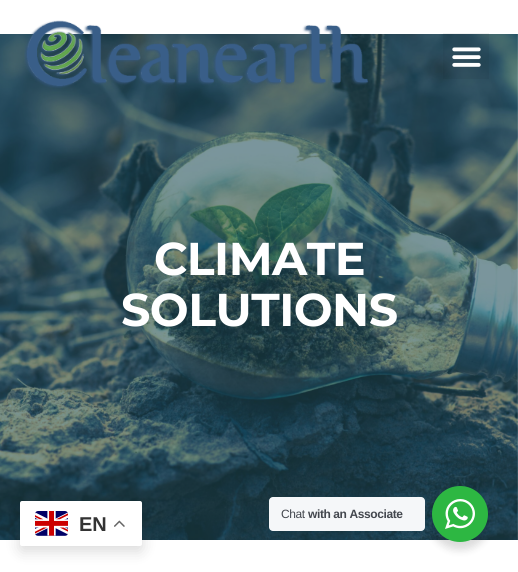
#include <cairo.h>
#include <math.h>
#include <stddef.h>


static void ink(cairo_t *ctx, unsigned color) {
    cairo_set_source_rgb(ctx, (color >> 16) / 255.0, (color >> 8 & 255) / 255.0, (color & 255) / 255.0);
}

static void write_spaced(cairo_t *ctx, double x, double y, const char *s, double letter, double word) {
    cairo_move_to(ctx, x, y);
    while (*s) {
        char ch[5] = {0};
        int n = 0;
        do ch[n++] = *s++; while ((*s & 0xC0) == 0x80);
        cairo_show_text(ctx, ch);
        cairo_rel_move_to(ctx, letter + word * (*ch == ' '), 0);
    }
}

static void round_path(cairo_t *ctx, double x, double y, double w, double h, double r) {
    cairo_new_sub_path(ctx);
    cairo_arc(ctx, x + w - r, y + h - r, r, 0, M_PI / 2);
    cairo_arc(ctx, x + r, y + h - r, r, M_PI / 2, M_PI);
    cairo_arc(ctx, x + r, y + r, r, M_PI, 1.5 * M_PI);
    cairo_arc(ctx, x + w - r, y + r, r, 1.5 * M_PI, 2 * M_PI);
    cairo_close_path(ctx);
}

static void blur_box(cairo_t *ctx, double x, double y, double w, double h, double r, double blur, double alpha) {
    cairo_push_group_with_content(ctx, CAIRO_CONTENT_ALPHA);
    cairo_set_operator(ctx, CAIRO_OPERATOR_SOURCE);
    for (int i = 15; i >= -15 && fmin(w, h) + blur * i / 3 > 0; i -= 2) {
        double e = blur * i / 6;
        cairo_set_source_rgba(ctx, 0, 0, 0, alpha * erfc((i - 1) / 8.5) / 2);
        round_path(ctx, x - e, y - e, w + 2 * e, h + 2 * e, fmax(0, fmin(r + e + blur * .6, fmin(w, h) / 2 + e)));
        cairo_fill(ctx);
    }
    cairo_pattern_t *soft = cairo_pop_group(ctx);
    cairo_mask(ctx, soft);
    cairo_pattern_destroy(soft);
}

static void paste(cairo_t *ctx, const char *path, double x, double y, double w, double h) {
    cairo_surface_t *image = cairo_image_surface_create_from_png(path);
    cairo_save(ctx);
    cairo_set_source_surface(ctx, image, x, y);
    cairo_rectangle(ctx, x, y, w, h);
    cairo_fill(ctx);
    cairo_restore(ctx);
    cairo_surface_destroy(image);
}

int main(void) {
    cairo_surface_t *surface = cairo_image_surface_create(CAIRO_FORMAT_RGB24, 518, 572);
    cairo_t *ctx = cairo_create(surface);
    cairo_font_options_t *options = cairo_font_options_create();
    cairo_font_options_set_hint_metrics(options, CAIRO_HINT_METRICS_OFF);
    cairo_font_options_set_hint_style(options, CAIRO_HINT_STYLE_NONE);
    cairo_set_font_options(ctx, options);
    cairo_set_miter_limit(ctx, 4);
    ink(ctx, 0xFFFFFF);
    cairo_paint(ctx);
    paste(ctx, "media/3.png", 0, 34, 518, 506);
    paste(ctx, "media/1.png", 24, 20, 345, 68);
    cairo_set_source_rgba(ctx, 0, 0, 0, 0.05);
    cairo_rectangle(ctx, 443, 33, 46, 46);
    cairo_fill(ctx);
    paste(ctx, "media/2.png", 452, 47, 29, 20);
    cairo_select_font_face(ctx, "Montserrat", CAIRO_FONT_SLANT_NORMAL, CAIRO_FONT_WEIGHT_BOLD);
    cairo_set_font_size(ctx, 46);
    ink(ctx, 0xFFFFFF);
    write_spaced(ctx, 154, 275, "CLIMATE", -0.5, 0);
    write_spaced(ctx, 121, 326, "SOLUTIONS", -0.5, 0);
    ink(ctx, 0x000000);
    blur_box(ctx, 430, 490, 60, 60, 30, 4, 0.14);
    ink(ctx, 0xF5F7F9);
    round_path(ctx, 269, 497, 156, 34, 4);
    cairo_fill(ctx);
    cairo_select_font_face(ctx, "Liberation Sans", CAIRO_FONT_SLANT_NORMAL, CAIRO_FONT_WEIGHT_NORMAL);
    cairo_set_font_size(ctx, 12);
    ink(ctx, 0x43474E);
    write_spaced(ctx, 281, 518, "Chat", -0.4, 0);
    cairo_select_font_face(ctx, "Liberation Sans", CAIRO_FONT_SLANT_NORMAL, CAIRO_FONT_WEIGHT_BOLD);
    write_spaced(ctx, 308, 518, "with an Associate", -0.4, 0);
    ink(ctx, 0x2DB742);
    cairo_new_path(ctx);
    cairo_arc(ctx, 460, 514, 28, 0, 2 * M_PI);
    cairo_fill(ctx);
    paste(ctx, "media/4.png", 445, 499, 30, 30);
    ink(ctx, 0x000000);
    blur_box(ctx, 20, 506, 122, 45, 2, 7.5, 0.15);
    ink(ctx, 0xFFFFFF);
    round_path(ctx, 20, 501, 122, 45, 2);
    cairo_fill(ctx);
    paste(ctx, "media/5.png", 35, 511, 33, 25);
    cairo_set_font_size(ctx, 20);
    ink(ctx, 0x333333);
    cairo_move_to(ctx, 79, 531);
    cairo_show_text(ctx, "EN");
    paste(ctx, "media/6.png", 114, 520, 11, 7);
    cairo_surface_write_to_png(surface, "image.png");
    cairo_font_options_destroy(options);
    cairo_destroy(ctx);
    cairo_surface_destroy(surface);
    return 0;
}
